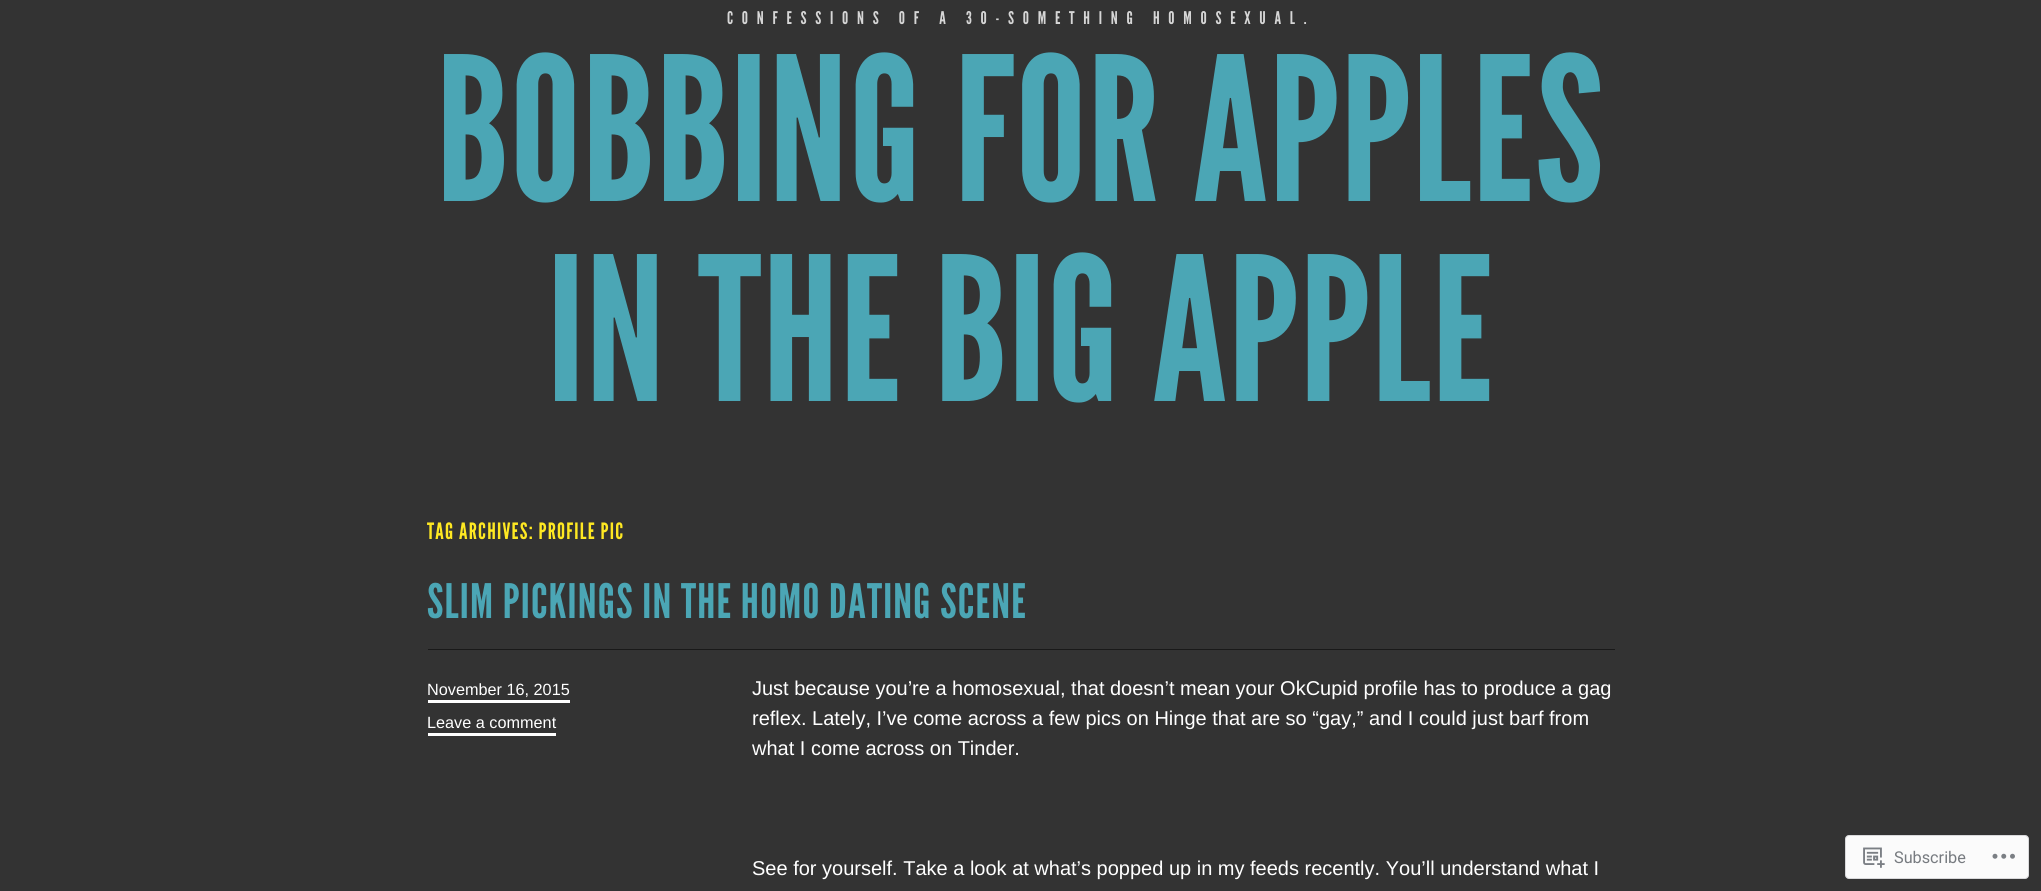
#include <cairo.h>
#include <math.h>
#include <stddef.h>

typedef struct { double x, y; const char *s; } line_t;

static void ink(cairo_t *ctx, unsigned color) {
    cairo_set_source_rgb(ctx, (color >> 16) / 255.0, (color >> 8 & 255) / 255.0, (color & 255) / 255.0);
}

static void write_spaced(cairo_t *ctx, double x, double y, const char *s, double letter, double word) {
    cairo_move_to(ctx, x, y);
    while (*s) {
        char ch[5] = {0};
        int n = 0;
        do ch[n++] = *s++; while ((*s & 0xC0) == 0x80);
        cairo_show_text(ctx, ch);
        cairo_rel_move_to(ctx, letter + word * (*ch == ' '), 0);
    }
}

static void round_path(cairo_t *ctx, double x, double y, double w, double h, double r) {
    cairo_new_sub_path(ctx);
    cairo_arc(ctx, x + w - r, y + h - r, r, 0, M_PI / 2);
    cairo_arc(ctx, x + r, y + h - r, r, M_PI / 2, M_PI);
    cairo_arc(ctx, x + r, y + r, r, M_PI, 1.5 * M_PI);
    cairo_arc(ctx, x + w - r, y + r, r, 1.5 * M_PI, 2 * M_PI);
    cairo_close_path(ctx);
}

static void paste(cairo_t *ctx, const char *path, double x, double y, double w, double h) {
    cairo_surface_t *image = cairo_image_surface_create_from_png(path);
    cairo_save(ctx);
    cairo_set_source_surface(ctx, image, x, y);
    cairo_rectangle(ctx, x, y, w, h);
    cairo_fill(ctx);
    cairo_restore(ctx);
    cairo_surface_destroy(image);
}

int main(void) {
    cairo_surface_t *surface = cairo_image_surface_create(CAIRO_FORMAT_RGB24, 2041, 891);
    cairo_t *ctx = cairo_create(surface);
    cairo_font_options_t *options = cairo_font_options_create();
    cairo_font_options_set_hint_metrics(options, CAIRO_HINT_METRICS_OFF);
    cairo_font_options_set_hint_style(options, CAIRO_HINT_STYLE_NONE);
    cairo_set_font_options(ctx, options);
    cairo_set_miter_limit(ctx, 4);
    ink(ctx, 0x333333);
    cairo_paint(ctx);
    cairo_select_font_face(ctx, "League Gothic", CAIRO_FONT_SLANT_NORMAL, CAIRO_FONT_WEIGHT_NORMAL);
    cairo_set_font_size(ctx, 17.5);
    ink(ctx, 0xD6D6D6);
    write_spaced(ctx, 727, 24, "CONFESSIONS OF A 30-SOMETHING HOMOSEXUAL.", 8.75, 0);
    cairo_set_font_size(ctx, 200);
    ink(ctx, 0x4BA6B5);
    write_spaced(ctx, 436, 201, "BOBBING FOR APPLES", 1.25, 0);
    write_spaced(ctx, 547, 401, "IN THE BIG APPLE", 1.25, 0);
    cairo_set_font_size(ctx, 22.5);
    ink(ctx, 0xFEE822);
    write_spaced(ctx, 427, 539, "TAG ARCHIVES: PROFILE PIC", 1.25, 0);
    ink(ctx, 0x191919);
    cairo_rectangle(ctx, 428, 649, 1187, 1);
    cairo_fill(ctx);
    cairo_set_font_size(ctx, 47.5);
    ink(ctx, 0x4BA6B5);
    write_spaced(ctx, 427, 618, "SLIM PICKINGS IN THE HOMO DATING SCENE", 1.25, 0);
    cairo_select_font_face(ctx, "Liberation Sans", CAIRO_FONT_SLANT_NORMAL, CAIRO_FONT_WEIGHT_NORMAL);
    cairo_set_font_size(ctx, 16.25);
    ink(ctx, 0xFFFFFF);
    cairo_move_to(ctx, 427, 695);
    cairo_show_text(ctx, "November 16, 2015");
    cairo_rectangle(ctx, 428, 700, 142, 3);
    cairo_fill(ctx);
    cairo_move_to(ctx, 427, 728);
    cairo_show_text(ctx, "Leave a comment");
    cairo_rectangle(ctx, 428, 733, 128, 3);
    cairo_fill(ctx);
    cairo_set_font_size(ctx, 20);
    {
        static const line_t items[] = {
            {752, 695, "Just because you’re a homosexual, that doesn’t mean your OkCupid profile has to produce a gag"},
            {752, 725, "reflex. Lately, I’ve come across a few pics on Hinge that are so “gay,” and I could just barf from"},
            {752, 755, "what I come across on Tinder."},
            {752, 875, "See for yourself. Take a look at what’s popped up in my feeds recently. You’ll understand what I"},
        };
        for (size_t i = 0; i < sizeof items / sizeof *items; i++) {
            cairo_move_to(ctx, items[i].x, items[i].y);
            cairo_show_text(ctx, items[i].s);
        }
    }
    ink(ctx, 0xFBFBFB);
    round_path(ctx, 1845.5, 835.5, 183, 43, 3.5);
    cairo_fill_preserve(ctx);
    ink(ctx, 0xD9D9DB);
    cairo_set_line_width(ctx, 1);
    cairo_stroke(ctx);
    paste(ctx, "media/1.png", 1863, 847, 22, 21);
    cairo_select_font_face(ctx, "Roboto", CAIRO_FONT_SLANT_NORMAL, CAIRO_FONT_WEIGHT_NORMAL);
    cairo_set_font_size(ctx, 16.25);
    ink(ctx, 0x777B80);
    cairo_move_to(ctx, 1894, 863);
    cairo_show_text(ctx, "Subscribe");
    paste(ctx, "media/2.png", 1992, 853, 23, 6);
    cairo_surface_write_to_png(surface, "image.png");
    cairo_font_options_destroy(options);
    cairo_destroy(ctx);
    cairo_surface_destroy(surface);
    return 0;
}
